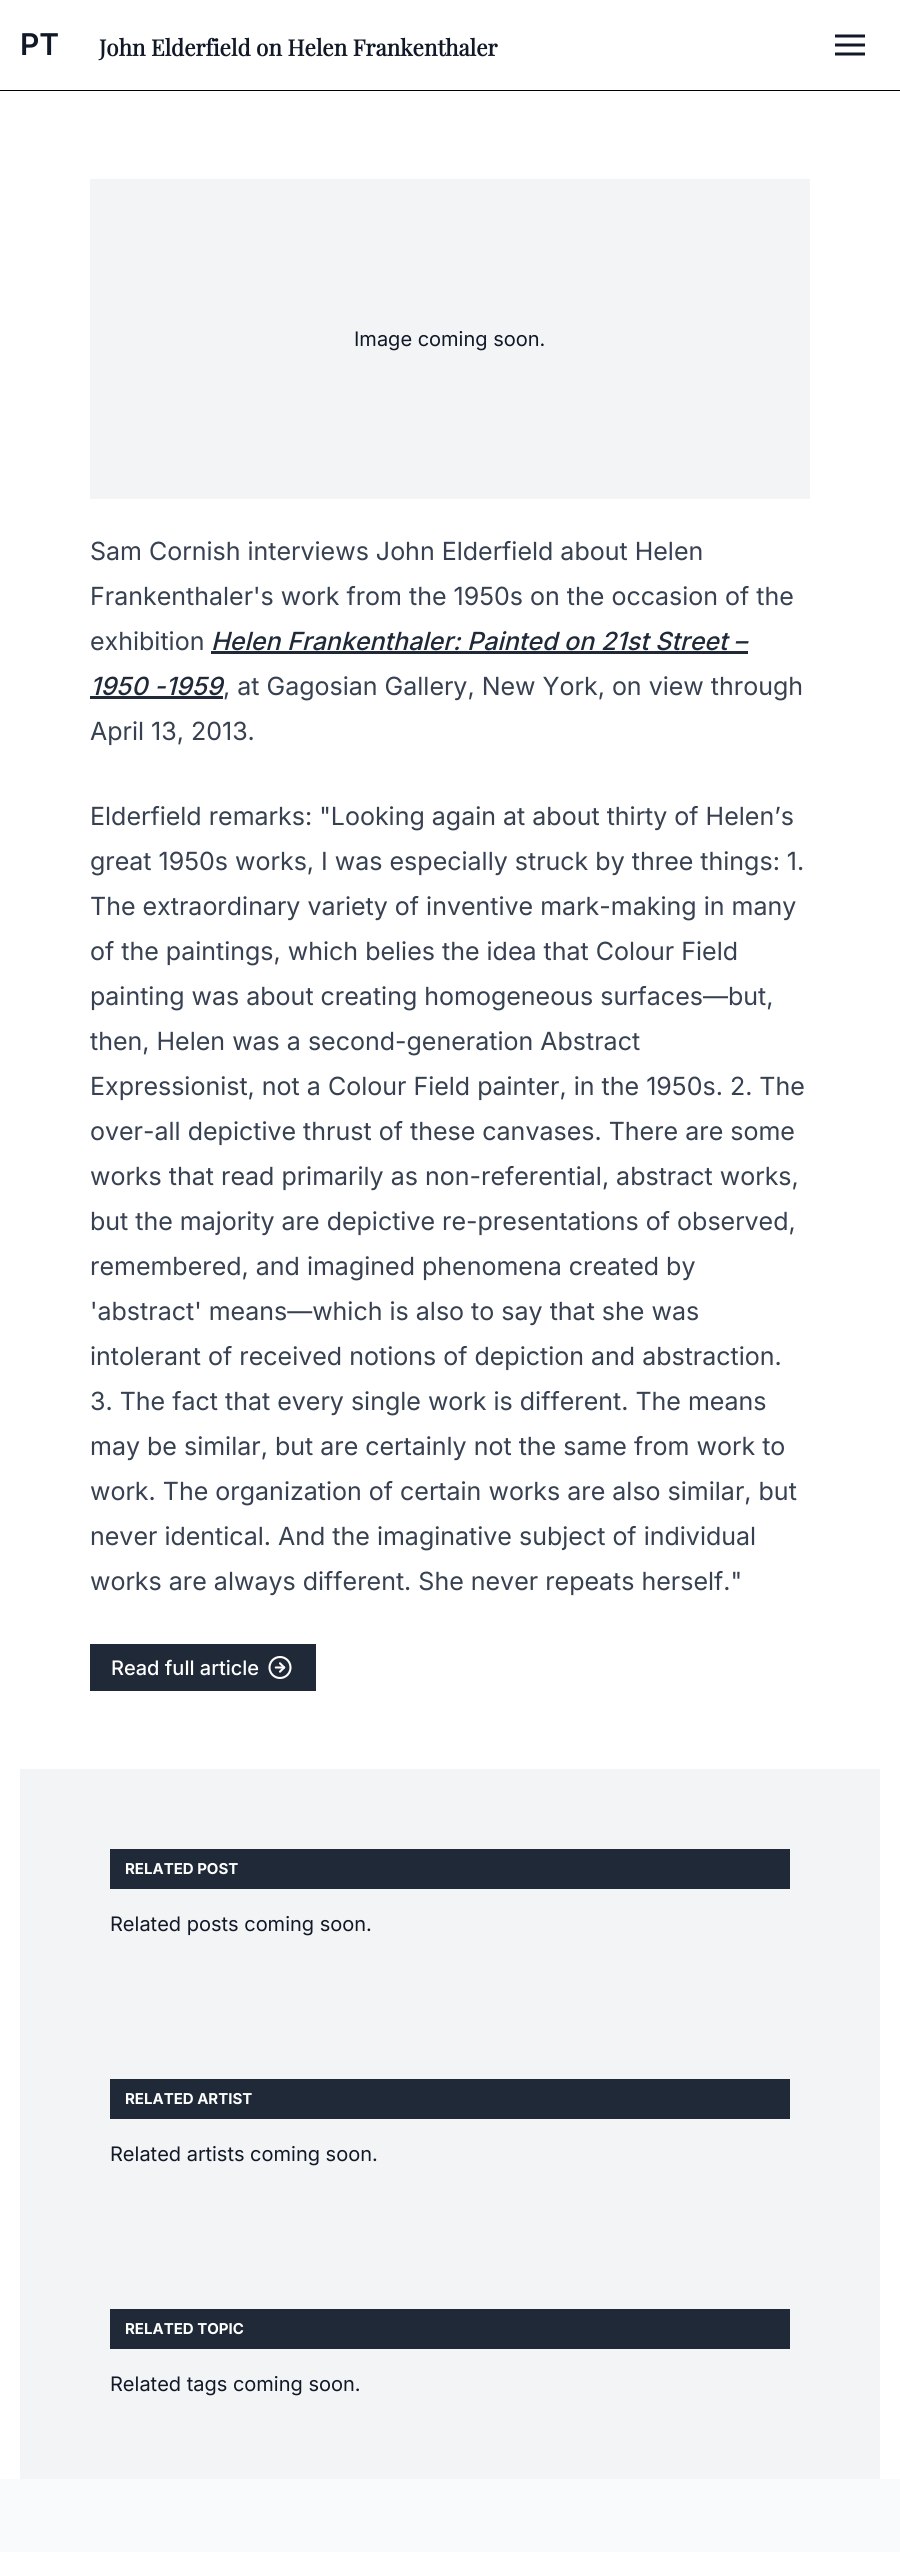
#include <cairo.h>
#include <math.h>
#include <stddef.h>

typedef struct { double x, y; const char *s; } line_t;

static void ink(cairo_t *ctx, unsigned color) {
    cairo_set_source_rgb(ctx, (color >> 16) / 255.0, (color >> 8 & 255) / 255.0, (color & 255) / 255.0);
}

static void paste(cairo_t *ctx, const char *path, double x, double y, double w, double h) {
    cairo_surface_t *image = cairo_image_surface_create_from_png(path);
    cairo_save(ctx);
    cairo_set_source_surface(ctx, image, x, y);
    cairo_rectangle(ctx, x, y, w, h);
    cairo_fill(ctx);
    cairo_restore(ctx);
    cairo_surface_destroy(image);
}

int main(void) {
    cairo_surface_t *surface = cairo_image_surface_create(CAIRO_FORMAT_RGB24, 900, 2552);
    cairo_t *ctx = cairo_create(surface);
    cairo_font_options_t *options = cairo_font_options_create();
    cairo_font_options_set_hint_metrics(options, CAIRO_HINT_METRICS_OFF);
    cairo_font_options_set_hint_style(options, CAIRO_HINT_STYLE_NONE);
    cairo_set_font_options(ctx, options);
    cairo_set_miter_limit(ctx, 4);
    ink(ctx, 0xFFFFFF);
    cairo_paint(ctx);
    ink(ctx, 0x000000);
    cairo_rectangle(ctx, 0, 90, 900, 1);
    cairo_fill(ctx);
    cairo_select_font_face(ctx, "Inter SemiBold", CAIRO_FONT_SLANT_NORMAL, CAIRO_FONT_WEIGHT_NORMAL);
    cairo_set_font_size(ctx, 30);
    ink(ctx, 0x111827);
    cairo_move_to(ctx, 20, 55);
    cairo_show_text(ctx, "PT");
    cairo_select_font_face(ctx, "Playfair Display", CAIRO_FONT_SLANT_NORMAL, CAIRO_FONT_WEIGHT_BOLD);
    cairo_set_font_size(ctx, 22.5);
    cairo_move_to(ctx, 99, 56);
    cairo_show_text(ctx, "John Elderfield on Helen Frankenthaler");
    paste(ctx, "media/1.png", 835, 34, 30, 22);
    ink(ctx, 0xF3F4F6);
    cairo_rectangle(ctx, 90, 179, 720, 320);
    cairo_fill(ctx);
    cairo_select_font_face(ctx, "Inter", CAIRO_FONT_SLANT_NORMAL, CAIRO_FONT_WEIGHT_NORMAL);
    cairo_set_font_size(ctx, 20);
    ink(ctx, 0x111827);
    cairo_move_to(ctx, 354, 346);
    cairo_show_text(ctx, "Image coming soon.");
    cairo_set_font_size(ctx, 25);
    ink(ctx, 0x374151);
    {
        static const line_t items[] = {
            {90, 560, "Sam Cornish interviews John Elderfield about Helen"},
            {90, 605, "Frankenthaler's work from the 1950s on the occasion of the"},
            {90, 650, "exhibition"},
        };
        for (size_t i = 0; i < sizeof items / sizeof *items; i++) {
            cairo_move_to(ctx, items[i].x, items[i].y);
            cairo_show_text(ctx, items[i].s);
        }
    }
    cairo_select_font_face(ctx, "Inter Medium", CAIRO_FONT_SLANT_ITALIC, CAIRO_FONT_WEIGHT_NORMAL);
    ink(ctx, 0x1F2937);
    cairo_move_to(ctx, 211, 650);
    cairo_show_text(ctx, "Helen Frankenthaler: Painted on 21st Street –");
    cairo_rectangle(ctx, 211, 651, 537, 3);
    cairo_fill(ctx);
    cairo_move_to(ctx, 90, 695);
    cairo_show_text(ctx, "1950 -1959");
    cairo_rectangle(ctx, 90, 696, 133, 3);
    cairo_fill(ctx);
    cairo_select_font_face(ctx, "Inter", CAIRO_FONT_SLANT_NORMAL, CAIRO_FONT_WEIGHT_NORMAL);
    ink(ctx, 0x374151);
    {
        static const line_t items[] = {
            {223, 695, ", at Gagosian Gallery, New York, on view through"},
            {90, 740, "April 13, 2013."},
            {90, 825, "Elderfield remarks: \"Looking again at about thirty of Helen’s"},
            {90, 870, "great 1950s works, I was especially struck by three things: 1."},
            {90, 915, "The extraordinary variety of inventive mark-making in many"},
            {90, 960, "of the paintings, which belies the idea that Colour Field"},
            {90, 1005, "painting was about creating homogeneous surfaces—but,"},
            {90, 1050, "then, Helen was a second-generation Abstract"},
            {90, 1095, "Expressionist, not a Colour Field painter, in the 1950s. 2. The"},
            {90, 1140, "over-all depictive thrust of these canvases. There are some"},
            {90, 1185, "works that read primarily as non-referential, abstract works,"},
            {90, 1230, "but the majority are depictive re-presentations of observed,"},
            {90, 1275, "remembered, and imagined phenomena created by"},
            {90, 1320, "'abstract' means—which is also to say that she was"},
            {90, 1365, "intolerant of received notions of depiction and abstraction."},
            {90, 1410, "3. The fact that every single work is different. The means"},
            {90, 1455, "may be similar, but are certainly not the same from work to"},
            {90, 1500, "work. The organization of certain works are also similar, but"},
            {90, 1545, "never identical. And the imaginative subject of individual"},
            {90, 1590, "works are always different. She never repeats herself.\""},
        };
        for (size_t i = 0; i < sizeof items / sizeof *items; i++) {
            cairo_move_to(ctx, items[i].x, items[i].y);
            cairo_show_text(ctx, items[i].s);
        }
    }
    ink(ctx, 0x1F2937);
    cairo_rectangle(ctx, 90, 1644, 226, 47);
    cairo_fill(ctx);
    cairo_select_font_face(ctx, "Inter Medium", CAIRO_FONT_SLANT_NORMAL, CAIRO_FONT_WEIGHT_NORMAL);
    cairo_set_font_size(ctx, 20);
    ink(ctx, 0xFFFFFF);
    cairo_move_to(ctx, 111, 1675);
    cairo_show_text(ctx, "Read full article");
    paste(ctx, "media/2.png", 268, 1656, 24, 23);
    ink(ctx, 0xF3F4F6);
    cairo_rectangle(ctx, 20, 1769, 860, 710);
    cairo_fill(ctx);
    ink(ctx, 0x1F2937);
    cairo_rectangle(ctx, 110, 1849, 680, 40);
    cairo_fill(ctx);
    cairo_select_font_face(ctx, "Inter", CAIRO_FONT_SLANT_NORMAL, CAIRO_FONT_WEIGHT_BOLD);
    cairo_set_font_size(ctx, 15);
    ink(ctx, 0xFFFFFF);
    cairo_move_to(ctx, 125, 1874);
    cairo_show_text(ctx, "RELATED POST");
    cairo_select_font_face(ctx, "Inter", CAIRO_FONT_SLANT_NORMAL, CAIRO_FONT_WEIGHT_NORMAL);
    cairo_set_font_size(ctx, 20);
    ink(ctx, 0x111827);
    cairo_move_to(ctx, 110, 1931);
    cairo_show_text(ctx, "Related posts coming soon.");
    ink(ctx, 0x1F2937);
    cairo_rectangle(ctx, 110, 2079, 680, 40);
    cairo_fill(ctx);
    cairo_select_font_face(ctx, "Inter", CAIRO_FONT_SLANT_NORMAL, CAIRO_FONT_WEIGHT_BOLD);
    cairo_set_font_size(ctx, 15);
    ink(ctx, 0xFFFFFF);
    cairo_move_to(ctx, 125, 2104);
    cairo_show_text(ctx, "RELATED ARTIST");
    cairo_select_font_face(ctx, "Inter", CAIRO_FONT_SLANT_NORMAL, CAIRO_FONT_WEIGHT_NORMAL);
    cairo_set_font_size(ctx, 20);
    ink(ctx, 0x111827);
    cairo_move_to(ctx, 110, 2161);
    cairo_show_text(ctx, "Related artists coming soon.");
    ink(ctx, 0x1F2937);
    cairo_rectangle(ctx, 110, 2309, 680, 40);
    cairo_fill(ctx);
    cairo_select_font_face(ctx, "Inter", CAIRO_FONT_SLANT_NORMAL, CAIRO_FONT_WEIGHT_BOLD);
    cairo_set_font_size(ctx, 15);
    ink(ctx, 0xFFFFFF);
    cairo_move_to(ctx, 125, 2334);
    cairo_show_text(ctx, "RELATED TOPIC");
    cairo_select_font_face(ctx, "Inter", CAIRO_FONT_SLANT_NORMAL, CAIRO_FONT_WEIGHT_NORMAL);
    cairo_set_font_size(ctx, 20);
    ink(ctx, 0x111827);
    cairo_move_to(ctx, 110, 2391);
    cairo_show_text(ctx, "Related tags coming soon.");
    ink(ctx, 0xF9FAFB);
    cairo_rectangle(ctx, 0, 2479, 900, 73);
    cairo_fill(ctx);
    cairo_surface_write_to_png(surface, "image.png");
    cairo_font_options_destroy(options);
    cairo_destroy(ctx);
    cairo_surface_destroy(surface);
    return 0;
}
